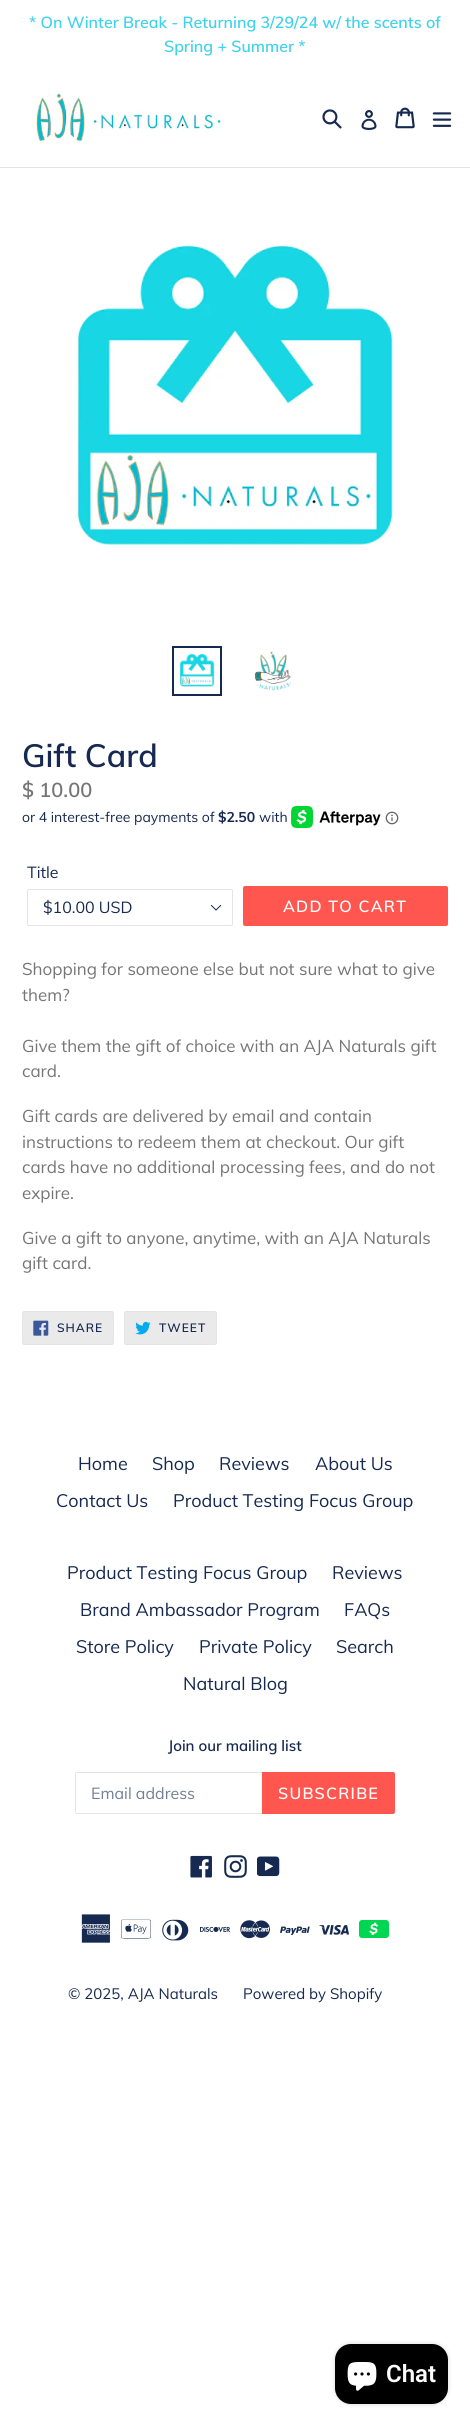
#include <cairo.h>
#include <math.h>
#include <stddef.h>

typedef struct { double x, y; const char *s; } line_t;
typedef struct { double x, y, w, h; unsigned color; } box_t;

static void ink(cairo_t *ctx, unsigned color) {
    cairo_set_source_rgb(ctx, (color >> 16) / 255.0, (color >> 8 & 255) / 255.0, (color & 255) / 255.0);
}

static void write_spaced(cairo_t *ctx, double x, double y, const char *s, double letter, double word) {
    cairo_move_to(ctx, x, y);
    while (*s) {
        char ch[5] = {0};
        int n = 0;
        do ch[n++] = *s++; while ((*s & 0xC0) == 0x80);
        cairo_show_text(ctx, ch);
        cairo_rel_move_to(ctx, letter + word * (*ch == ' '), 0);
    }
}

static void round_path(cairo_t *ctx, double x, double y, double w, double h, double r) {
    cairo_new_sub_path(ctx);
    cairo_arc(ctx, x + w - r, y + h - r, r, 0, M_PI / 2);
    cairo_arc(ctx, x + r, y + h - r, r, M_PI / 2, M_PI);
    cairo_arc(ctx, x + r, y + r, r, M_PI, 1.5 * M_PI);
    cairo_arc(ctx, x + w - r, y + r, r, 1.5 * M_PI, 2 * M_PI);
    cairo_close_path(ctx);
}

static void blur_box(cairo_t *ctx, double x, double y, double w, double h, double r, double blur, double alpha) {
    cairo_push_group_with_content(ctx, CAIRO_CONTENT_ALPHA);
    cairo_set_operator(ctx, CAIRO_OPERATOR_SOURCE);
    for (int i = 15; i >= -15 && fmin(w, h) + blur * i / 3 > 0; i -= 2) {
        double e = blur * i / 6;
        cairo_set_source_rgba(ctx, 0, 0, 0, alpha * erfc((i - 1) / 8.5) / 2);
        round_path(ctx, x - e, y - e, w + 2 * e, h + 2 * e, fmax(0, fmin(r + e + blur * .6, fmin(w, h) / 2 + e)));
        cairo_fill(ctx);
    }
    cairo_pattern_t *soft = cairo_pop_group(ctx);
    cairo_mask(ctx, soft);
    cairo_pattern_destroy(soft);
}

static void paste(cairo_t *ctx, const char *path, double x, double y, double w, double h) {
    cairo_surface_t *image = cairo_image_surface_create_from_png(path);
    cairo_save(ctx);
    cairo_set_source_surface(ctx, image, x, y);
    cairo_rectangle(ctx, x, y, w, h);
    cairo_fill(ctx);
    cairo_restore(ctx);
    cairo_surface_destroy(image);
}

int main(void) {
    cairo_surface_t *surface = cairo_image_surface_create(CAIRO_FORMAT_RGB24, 470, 2425);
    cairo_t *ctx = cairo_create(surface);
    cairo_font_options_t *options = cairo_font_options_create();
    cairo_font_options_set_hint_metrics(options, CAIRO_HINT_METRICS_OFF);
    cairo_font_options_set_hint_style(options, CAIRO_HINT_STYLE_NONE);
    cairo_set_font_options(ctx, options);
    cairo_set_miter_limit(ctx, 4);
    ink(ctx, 0xFFFFFF);
    cairo_paint(ctx);
    cairo_select_font_face(ctx, "Muli SemiBold", CAIRO_FONT_SLANT_NORMAL, CAIRO_FONT_WEIGHT_NORMAL);
    cairo_set_font_size(ctx, 16);
    ink(ctx, 0x3FD2ED);
    cairo_move_to(ctx, 29, 28);
    cairo_show_text(ctx, "* On Winter Break - Returning 3/29/24 w/ the scents of");
    cairo_move_to(ctx, 164, 52);
    cairo_show_text(ctx, "Spring + Summer *");
    ink(ctx, 0xE4E4E4);
    cairo_rectangle(ctx, 0, 167, 470, 1);
    cairo_fill(ctx);
    paste(ctx, "media/1.png", 36, 93, 186, 51);
    paste(ctx, "media/2.png", 322, 109, 20, 20);
    paste(ctx, "media/3.png", 361, 110, 16, 20);
    paste(ctx, "media/4.png", 395, 107, 20, 22);
    paste(ctx, "media/5.png", 432, 112, 20, 15);
    paste(ctx, "media/6.png", 74, 241, 320, 309);
    cairo_rectangle(ctx, 173, 647, 48, 48);
    ink(ctx, 0x162950);
    cairo_stroke(ctx);
    paste(ctx, "media/7.png", 179, 653, 36, 34);
    paste(ctx, "media/8.png", 255, 651, 36, 40);
    cairo_set_font_size(ctx, 32);
    cairo_move_to(ctx, 22, 767);
    cairo_show_text(ctx, "Gift Card");
    cairo_set_font_size(ctx, 20);
    ink(ctx, 0x757575);
    cairo_move_to(ctx, 22, 797);
    cairo_show_text(ctx, "$ 10.00");
    cairo_select_font_face(ctx, "Muli", CAIRO_FONT_SLANT_NORMAL, CAIRO_FONT_WEIGHT_NORMAL);
    cairo_set_font_size(ctx, 14);
    ink(ctx, 0x162950);
    cairo_move_to(ctx, 22, 822);
    cairo_show_text(ctx, "or 4 interest-free payments of");
    cairo_select_font_face(ctx, "Muli", CAIRO_FONT_SLANT_NORMAL, CAIRO_FONT_WEIGHT_BOLD);
    cairo_move_to(ctx, 218, 822);
    cairo_show_text(ctx, "$2.50");
    cairo_select_font_face(ctx, "Muli", CAIRO_FONT_SLANT_NORMAL, CAIRO_FONT_WEIGHT_NORMAL);
    cairo_move_to(ctx, 259, 822);
    cairo_show_text(ctx, "with");
    paste(ctx, "media/9.png", 291, 806, 90, 22);
    paste(ctx, "media/10.png", 385, 811, 14, 14);
    cairo_set_font_size(ctx, 16);
    cairo_move_to(ctx, 27, 878);
    cairo_show_text(ctx, "Title");
    paste(ctx, "media/11.png", 210, 904, 12, 7);
    round_path(ctx, 27.5, 889.5, 205, 36, 1.5);
    ink(ctx, 0xE4E4E4);
    cairo_set_line_width(ctx, 1);
    cairo_stroke(ctx);
    ink(ctx, 0x162950);
    cairo_move_to(ctx, 43, 913);
    cairo_show_text(ctx, "$10.00 USD");
    ink(ctx, 0xFF574F);
    round_path(ctx, 243, 886, 205, 40, 2);
    cairo_fill(ctx);
    cairo_select_font_face(ctx, "Muli SemiBold", CAIRO_FONT_SLANT_NORMAL, CAIRO_FONT_WEIGHT_NORMAL);
    ink(ctx, 0xFFFFFF);
    write_spaced(ctx, 283, 912, "ADD TO CART", 1.25, 0);
    cairo_select_font_face(ctx, "Muli", CAIRO_FONT_SLANT_NORMAL, CAIRO_FONT_WEIGHT_NORMAL);
    cairo_set_font_size(ctx, 17);
    ink(ctx, 0x757575);
    {
        static const line_t items[] = {
            {22, 975, "Shopping for someone else but not sure what to give"},
            {22, 1001, "them?"},
            {22, 1052, "Give them the gift of choice with an AJA Naturals gift"},
            {22, 1077, "card."},
            {22, 1122, "Gift cards are delivered by email and contain"},
            {22, 1148, "instructions to redeem them at checkout. Our gift"},
            {22, 1173, "cards have no additional processing fees, and do not"},
            {22, 1199, "expire."},
            {22, 1244, "Give a gift to anyone, anytime, with an AJA Naturals"},
            {22, 1269, "gift card."},
        };
        for (size_t i = 0; i < sizeof items / sizeof *items; i++) {
            cairo_move_to(ctx, items[i].x, items[i].y);
            cairo_show_text(ctx, items[i].s);
        }
    }
    ink(ctx, 0xEAEAEA);
    round_path(ctx, 22.5, 1311.5, 91, 33, 1.5);
    cairo_fill_preserve(ctx);
    ink(ctx, 0xE4E4E4);
    cairo_stroke(ctx);
    paste(ctx, "media/12.png", 33, 1320, 16, 16);
    cairo_select_font_face(ctx, "Muli SemiBold", CAIRO_FONT_SLANT_NORMAL, CAIRO_FONT_WEIGHT_NORMAL);
    cairo_set_font_size(ctx, 12);
    ink(ctx, 0x162950);
    write_spaced(ctx, 57, 1332, "SHARE", 1, 0);
    ink(ctx, 0xEAEAEA);
    round_path(ctx, 124.5, 1311.5, 92, 33, 1.5);
    cairo_fill_preserve(ctx);
    ink(ctx, 0xE4E4E4);
    cairo_stroke(ctx);
    paste(ctx, "media/13.png", 135, 1321, 16, 14);
    ink(ctx, 0x162950);
    write_spaced(ctx, 159, 1332, "TWEET", 1, 0);
    cairo_select_font_face(ctx, "Muli", CAIRO_FONT_SLANT_NORMAL, CAIRO_FONT_WEIGHT_NORMAL);
    cairo_set_font_size(ctx, 18);
    {
        static const line_t items[] = {
            {78, 1470, "Home"},
            {152, 1470, "Shop"},
            {219, 1470, "Reviews"},
            {315, 1470, "About Us"},
            {56, 1507, "Contact Us"},
            {173, 1507, "Product Testing Focus Group"},
            {67, 1579, "Product Testing Focus Group"},
            {332, 1579, "Reviews"},
            {80, 1616, "Brand Ambassador Program"},
            {344, 1616, "FAQs"},
            {76, 1653, "Store Policy"},
            {199, 1653, "Private Policy"},
            {336, 1653, "Search"},
            {183, 1690, "Natural Blog"},
        };
        for (size_t i = 0; i < sizeof items / sizeof *items; i++) {
            cairo_move_to(ctx, items[i].x, items[i].y);
            cairo_show_text(ctx, items[i].s);
        }
    }
    cairo_select_font_face(ctx, "Muli SemiBold", CAIRO_FONT_SLANT_NORMAL, CAIRO_FONT_WEIGHT_NORMAL);
    cairo_set_font_size(ctx, 15);
    cairo_move_to(ctx, 168, 1751);
    cairo_show_text(ctx, "Join our mailing list");
    {
        static const box_t items[] = {
            {76, 1772, 186, 1, 0xE4E4E4},
            {76, 1813, 186, 1, 0xE4E4E4},
            {75, 1773, 1, 40, 0xE4E4E4},
        };
        for (size_t i = 0; i < sizeof items / sizeof *items; i++) {
            ink(ctx, items[i].color);
            cairo_rectangle(ctx, items[i].x, items[i].y, items[i].w, items[i].h);
            cairo_fill(ctx);
        }
    }
    cairo_select_font_face(ctx, "Muli", CAIRO_FONT_SLANT_NORMAL, CAIRO_FONT_WEIGHT_NORMAL);
    cairo_set_font_size(ctx, 16);
    ink(ctx, 0x737F96);
    cairo_move_to(ctx, 91, 1799);
    cairo_show_text(ctx, "Email address");
    ink(ctx, 0xFF574F);
    cairo_new_path(ctx);
    cairo_move_to(ctx, 262, 1772);
    cairo_line_to(ctx, 393, 1772);
    cairo_curve_to(ctx, 394, 1772, 395, 1773, 395, 1774);
    cairo_line_to(ctx, 395, 1812);
    cairo_curve_to(ctx, 395, 1813, 394, 1814, 393, 1814);
    cairo_line_to(ctx, 262, 1814);
    cairo_close_path(ctx);
    cairo_fill(ctx);
    cairo_select_font_face(ctx, "Muli SemiBold", CAIRO_FONT_SLANT_NORMAL, CAIRO_FONT_WEIGHT_NORMAL);
    ink(ctx, 0xFFFFFF);
    write_spaced(ctx, 278, 1799, "SUBSCRIBE", 1.25, 0);
    paste(ctx, "media/14.png", 190, 1855, 22, 23);
    paste(ctx, "media/15.png", 224, 1855, 23, 23);
    paste(ctx, "media/16.png", 257, 1856, 23, 21);
    paste(ctx, "media/17.png", 81, 1914, 30, 29);
    paste(ctx, "media/18.png", 121, 1919, 30, 20);
    paste(ctx, "media/19.png", 162, 1919, 27, 22);
    paste(ctx, "media/20.png", 200, 1926, 30, 6);
    paste(ctx, "media/21.png", 240, 1920, 30, 19);
    paste(ctx, "media/22.png", 280, 1926, 30, 9);
    paste(ctx, "media/23.png", 319, 1925, 30, 10);
    paste(ctx, "media/24.png", 359, 1920, 30, 18);
    cairo_select_font_face(ctx, "Muli", CAIRO_FONT_SLANT_NORMAL, CAIRO_FONT_WEIGHT_NORMAL);
    cairo_set_font_size(ctx, 15);
    ink(ctx, 0x162950);
    cairo_move_to(ctx, 68, 1999);
    cairo_show_text(ctx, "© 2025, AJA Naturals");
    cairo_move_to(ctx, 243, 1999);
    cairo_show_text(ctx, "Powered by Shopify");
    ink(ctx, 0x000000);
    blur_box(ctx, 335, 2344, 113, 60, 16, 2.5, 0.15);
    ink(ctx, 0x000000);
    round_path(ctx, 335, 2344, 113, 60, 16);
    cairo_fill(ctx);
    paste(ctx, "media/25.png", 347, 2362, 30, 29);
    cairo_select_font_face(ctx, "Roboto SemiBold", CAIRO_FONT_SLANT_NORMAL, CAIRO_FONT_WEIGHT_NORMAL);
    cairo_set_font_size(ctx, 24);
    ink(ctx, 0xFFFFFF);
    cairo_move_to(ctx, 386, 2382);
    cairo_show_text(ctx, "Chat");
    cairo_surface_write_to_png(surface, "image.png");
    cairo_font_options_destroy(options);
    cairo_destroy(ctx);
    cairo_surface_destroy(surface);
    return 0;
}
